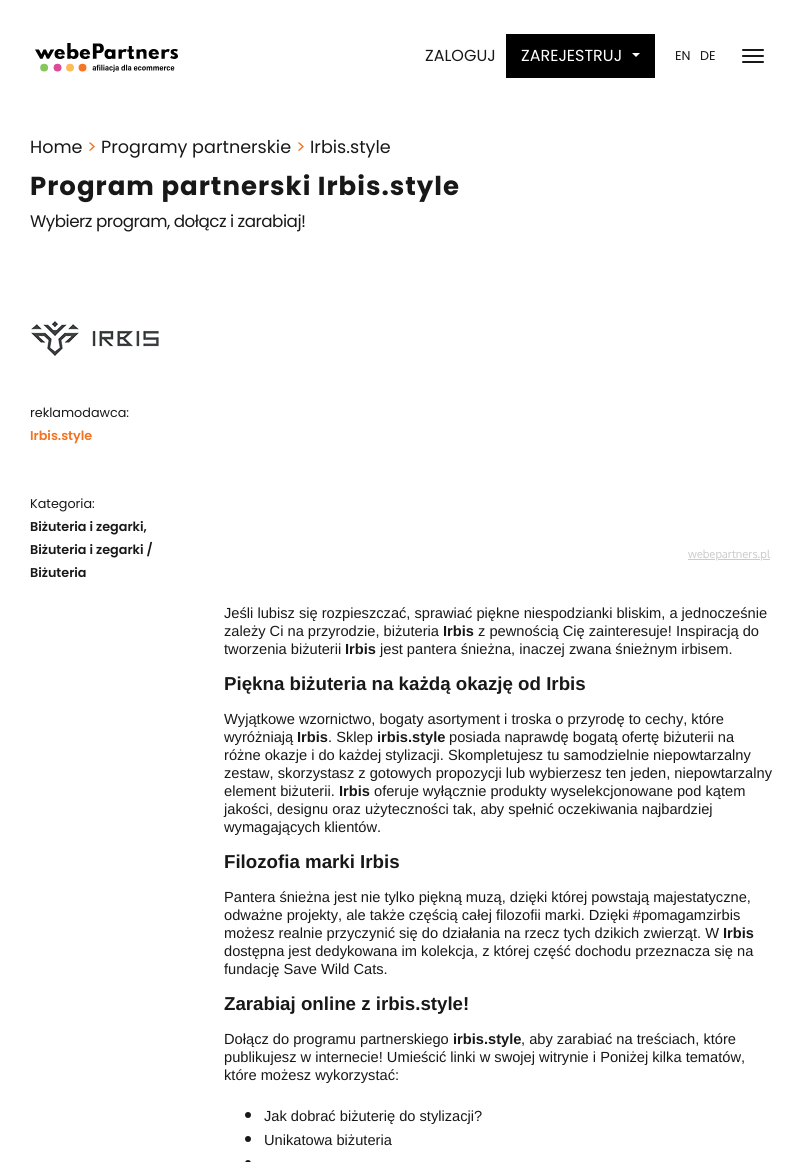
#include <cairo.h>
#include <math.h>
#include <stddef.h>

typedef struct { double x, y; const char *s; } line_t;

static void ink(cairo_t *ctx, unsigned color) {
    cairo_set_source_rgb(ctx, (color >> 16) / 255.0, (color >> 8 & 255) / 255.0, (color & 255) / 255.0);
}

static void write_spaced(cairo_t *ctx, double x, double y, const char *s, double letter, double word) {
    cairo_move_to(ctx, x, y);
    while (*s) {
        char ch[5] = {0};
        int n = 0;
        do ch[n++] = *s++; while ((*s & 0xC0) == 0x80);
        cairo_show_text(ctx, ch);
        cairo_rel_move_to(ctx, letter + word * (*ch == ' '), 0);
    }
}

static void round_path(cairo_t *ctx, double x, double y, double w, double h, double r) {
    cairo_new_sub_path(ctx);
    cairo_arc(ctx, x + w - r, y + h - r, r, 0, M_PI / 2);
    cairo_arc(ctx, x + r, y + h - r, r, M_PI / 2, M_PI);
    cairo_arc(ctx, x + r, y + r, r, M_PI, 1.5 * M_PI);
    cairo_arc(ctx, x + w - r, y + r, r, 1.5 * M_PI, 2 * M_PI);
    cairo_close_path(ctx);
}

static void paste(cairo_t *ctx, const char *path, double x, double y, double w, double h) {
    cairo_surface_t *image = cairo_image_surface_create_from_png(path);
    cairo_save(ctx);
    cairo_set_source_surface(ctx, image, x, y);
    cairo_rectangle(ctx, x, y, w, h);
    cairo_fill(ctx);
    cairo_restore(ctx);
    cairo_surface_destroy(image);
}

int main(void) {
    cairo_surface_t *surface = cairo_image_surface_create(CAIRO_FORMAT_RGB24, 805, 1162);
    cairo_t *ctx = cairo_create(surface);
    cairo_font_options_t *options = cairo_font_options_create();
    cairo_font_options_set_hint_metrics(options, CAIRO_HINT_METRICS_OFF);
    cairo_font_options_set_hint_style(options, CAIRO_HINT_STYLE_NONE);
    cairo_set_font_options(ctx, options);
    cairo_set_miter_limit(ctx, 4);
    ink(ctx, 0xFFFFFF);
    cairo_paint(ctx);
    paste(ctx, "media/1.png", 35, 43, 143, 29);
    cairo_select_font_face(ctx, "Poppins", CAIRO_FONT_SLANT_NORMAL, CAIRO_FONT_WEIGHT_NORMAL);
    cairo_set_font_size(ctx, 16);
    ink(ctx, 0x191819);
    cairo_move_to(ctx, 425, 61);
    cairo_show_text(ctx, "ZALOGUJ");
    ink(ctx, 0x000000);
    cairo_rectangle(ctx, 506, 34, 149, 44);
    cairo_fill(ctx);
    ink(ctx, 0xFFFFFF);
    cairo_move_to(ctx, 521, 61);
    cairo_show_text(ctx, "ZAREJESTRUJ");
    cairo_new_path(ctx);
    cairo_move_to(ctx, 632, 53);
    cairo_line_to(ctx, 640, 53);
    cairo_line_to(ctx, 636, 57);
    cairo_close_path(ctx);
    cairo_fill(ctx);
    cairo_set_font_size(ctx, 12.75);
    ink(ctx, 0x191819);
    cairo_move_to(ctx, 675, 60);
    cairo_show_text(ctx, "EN");
    cairo_move_to(ctx, 700, 60);
    cairo_show_text(ctx, "DE");
    round_path(ctx, 742, 49, 22, 2, 1);
    cairo_fill(ctx);
    round_path(ctx, 742, 55, 22, 2, 1);
    cairo_fill(ctx);
    round_path(ctx, 742, 61, 22, 2, 1);
    cairo_fill(ctx);
    cairo_set_font_size(ctx, 17.6);
    cairo_move_to(ctx, 30, 153);
    cairo_show_text(ctx, "Home");
    ink(ctx, 0xF37221);
    cairo_move_to(ctx, 87, 153);
    cairo_show_text(ctx, ">");
    ink(ctx, 0x191819);
    cairo_move_to(ctx, 101, 153);
    cairo_show_text(ctx, "Programy partnerskie");
    ink(ctx, 0xF37221);
    cairo_move_to(ctx, 296, 153);
    cairo_show_text(ctx, ">");
    ink(ctx, 0x191819);
    cairo_move_to(ctx, 310, 153);
    cairo_show_text(ctx, "Irbis.style");
    cairo_select_font_face(ctx, "Poppins", CAIRO_FONT_SLANT_NORMAL, CAIRO_FONT_WEIGHT_BOLD);
    cairo_set_font_size(ctx, 26);
    write_spaced(ctx, 30, 195, "Program partnerski Irbis.style", 1, 0);
    cairo_select_font_face(ctx, "Poppins", CAIRO_FONT_SLANT_NORMAL, CAIRO_FONT_WEIGHT_NORMAL);
    cairo_set_font_size(ctx, 16.75);
    write_spaced(ctx, 30, 227, "Wybierz program, dołącz i zarabiaj!", -0.5, 0);
    paste(ctx, "media/2.png", 31, 321, 128, 35);
    cairo_set_font_size(ctx, 12.75);
    cairo_move_to(ctx, 30, 417);
    cairo_show_text(ctx, "reklamodawca:");
    cairo_select_font_face(ctx, "Poppins SemiBold", CAIRO_FONT_SLANT_NORMAL, CAIRO_FONT_WEIGHT_NORMAL);
    ink(ctx, 0xF37221);
    cairo_move_to(ctx, 30, 440);
    cairo_show_text(ctx, "Irbis.style");
    cairo_select_font_face(ctx, "Poppins", CAIRO_FONT_SLANT_NORMAL, CAIRO_FONT_WEIGHT_NORMAL);
    ink(ctx, 0x191819);
    cairo_move_to(ctx, 30, 508);
    cairo_show_text(ctx, "Kategoria:");
    cairo_select_font_face(ctx, "Poppins SemiBold", CAIRO_FONT_SLANT_NORMAL, CAIRO_FONT_WEIGHT_NORMAL);
    {
        static const line_t items[] = {
            {30, 531, "Biżuteria i zegarki,"},
            {30, 554, "Biżuteria i zegarki /"},
            {30, 577, "Biżuteria"},
        };
        for (size_t i = 0; i < sizeof items / sizeof *items; i++) {
            cairo_move_to(ctx, items[i].x, items[i].y);
            cairo_show_text(ctx, items[i].s);
        }
    }
    paste(ctx, "media/3.png", 688, 549, 83, 12);
    cairo_select_font_face(ctx, "Liberation Sans", CAIRO_FONT_SLANT_NORMAL, CAIRO_FONT_WEIGHT_NORMAL);
    cairo_set_font_size(ctx, 14.65);
    cairo_move_to(ctx, 224, 618);
    cairo_show_text(ctx, "Jeśli lubisz się rozpieszczać, sprawiać piękne niespodzianki bliskim, a jednocześnie");
    cairo_move_to(ctx, 224, 636);
    cairo_show_text(ctx, "zależy Ci na przyrodzie, biżuteria");
    cairo_select_font_face(ctx, "Liberation Sans", CAIRO_FONT_SLANT_NORMAL, CAIRO_FONT_WEIGHT_BOLD);
    cairo_move_to(ctx, 443, 636);
    cairo_show_text(ctx, "Irbis");
    cairo_select_font_face(ctx, "Liberation Sans", CAIRO_FONT_SLANT_NORMAL, CAIRO_FONT_WEIGHT_NORMAL);
    cairo_move_to(ctx, 478, 636);
    cairo_show_text(ctx, "z pewnością Cię zainteresuje! Inspiracją do");
    cairo_move_to(ctx, 224, 654);
    cairo_show_text(ctx, "tworzenia biżuterii");
    cairo_select_font_face(ctx, "Liberation Sans", CAIRO_FONT_SLANT_NORMAL, CAIRO_FONT_WEIGHT_BOLD);
    cairo_move_to(ctx, 345, 654);
    cairo_show_text(ctx, "Irbis");
    cairo_select_font_face(ctx, "Liberation Sans", CAIRO_FONT_SLANT_NORMAL, CAIRO_FONT_WEIGHT_NORMAL);
    cairo_move_to(ctx, 380, 654);
    cairo_show_text(ctx, "jest pantera śnieżna, inaczej zwana śnieżnym irbisem.");
    cairo_select_font_face(ctx, "Liberation Sans", CAIRO_FONT_SLANT_NORMAL, CAIRO_FONT_WEIGHT_BOLD);
    cairo_set_font_size(ctx, 18.7);
    cairo_move_to(ctx, 224, 690);
    cairo_show_text(ctx, "Piękna biżuteria na każdą okazję od Irbis");
    cairo_select_font_face(ctx, "Liberation Sans", CAIRO_FONT_SLANT_NORMAL, CAIRO_FONT_WEIGHT_NORMAL);
    cairo_set_font_size(ctx, 14.65);
    cairo_move_to(ctx, 224, 724);
    cairo_show_text(ctx, "Wyjątkowe wzornictwo, bogaty asortyment i troska o przyrodę to cechy, które");
    cairo_move_to(ctx, 224, 742);
    cairo_show_text(ctx, "wyróżniają");
    cairo_select_font_face(ctx, "Liberation Sans", CAIRO_FONT_SLANT_NORMAL, CAIRO_FONT_WEIGHT_BOLD);
    cairo_move_to(ctx, 297, 742);
    cairo_show_text(ctx, "Irbis");
    cairo_select_font_face(ctx, "Liberation Sans", CAIRO_FONT_SLANT_NORMAL, CAIRO_FONT_WEIGHT_NORMAL);
    cairo_move_to(ctx, 328, 742);
    cairo_show_text(ctx, ". Sklep");
    cairo_select_font_face(ctx, "Liberation Sans", CAIRO_FONT_SLANT_NORMAL, CAIRO_FONT_WEIGHT_BOLD);
    cairo_move_to(ctx, 377, 742);
    cairo_show_text(ctx, "irbis.style");
    cairo_select_font_face(ctx, "Liberation Sans", CAIRO_FONT_SLANT_NORMAL, CAIRO_FONT_WEIGHT_NORMAL);
    {
        static const line_t items[] = {
            {449, 742, "posiada naprawdę bogatą ofertę biżuterii na"},
            {224, 760, "różne okazje i do każdej stylizacji. Skompletujesz tu samodzielnie niepowtarzalny"},
            {224, 778, "zestaw, skorzystasz z gotowych propozycji lub wybierzesz ten jeden, niepowtarzalny"},
            {224, 796, "element biżuterii."},
        };
        for (size_t i = 0; i < sizeof items / sizeof *items; i++) {
            cairo_move_to(ctx, items[i].x, items[i].y);
            cairo_show_text(ctx, items[i].s);
        }
    }
    cairo_select_font_face(ctx, "Liberation Sans", CAIRO_FONT_SLANT_NORMAL, CAIRO_FONT_WEIGHT_BOLD);
    cairo_move_to(ctx, 339, 796);
    cairo_show_text(ctx, "Irbis");
    cairo_select_font_face(ctx, "Liberation Sans", CAIRO_FONT_SLANT_NORMAL, CAIRO_FONT_WEIGHT_NORMAL);
    {
        static const line_t items[] = {
            {374, 796, "oferuje wyłącznie produkty wyselekcjonowane pod kątem"},
            {224, 814, "jakości, designu oraz użyteczności tak, aby spełnić oczekiwania najbardziej"},
            {224, 832, "wymagających klientów."},
        };
        for (size_t i = 0; i < sizeof items / sizeof *items; i++) {
            cairo_move_to(ctx, items[i].x, items[i].y);
            cairo_show_text(ctx, items[i].s);
        }
    }
    cairo_select_font_face(ctx, "Liberation Sans", CAIRO_FONT_SLANT_NORMAL, CAIRO_FONT_WEIGHT_BOLD);
    cairo_set_font_size(ctx, 18.7);
    cairo_move_to(ctx, 224, 868);
    cairo_show_text(ctx, "Filozofia marki Irbis");
    cairo_select_font_face(ctx, "Liberation Sans", CAIRO_FONT_SLANT_NORMAL, CAIRO_FONT_WEIGHT_NORMAL);
    cairo_set_font_size(ctx, 14.65);
    {
        static const line_t items[] = {
            {224, 902, "Pantera śnieżna jest nie tylko piękną muzą, dzięki której powstają majestatyczne,"},
            {224, 920, "odważne projekty, ale także częścią całej filozofii marki. Dzięki #pomagamzirbis"},
            {224, 938, "możesz realnie przyczynić się do działania na rzecz tych dzikich zwierząt. W"},
        };
        for (size_t i = 0; i < sizeof items / sizeof *items; i++) {
            cairo_move_to(ctx, items[i].x, items[i].y);
            cairo_show_text(ctx, items[i].s);
        }
    }
    cairo_select_font_face(ctx, "Liberation Sans", CAIRO_FONT_SLANT_NORMAL, CAIRO_FONT_WEIGHT_BOLD);
    cairo_move_to(ctx, 723, 938);
    cairo_show_text(ctx, "Irbis");
    cairo_select_font_face(ctx, "Liberation Sans", CAIRO_FONT_SLANT_NORMAL, CAIRO_FONT_WEIGHT_NORMAL);
    cairo_move_to(ctx, 224, 956);
    cairo_show_text(ctx, "dostępna jest dedykowana im kolekcja, z której część dochodu przeznacza się na");
    cairo_move_to(ctx, 224, 974);
    cairo_show_text(ctx, "fundację Save Wild Cats.");
    cairo_select_font_face(ctx, "Liberation Sans", CAIRO_FONT_SLANT_NORMAL, CAIRO_FONT_WEIGHT_BOLD);
    cairo_set_font_size(ctx, 18.7);
    cairo_move_to(ctx, 224, 1010);
    cairo_show_text(ctx, "Zarabiaj online z irbis.style!");
    cairo_select_font_face(ctx, "Liberation Sans", CAIRO_FONT_SLANT_NORMAL, CAIRO_FONT_WEIGHT_NORMAL);
    cairo_set_font_size(ctx, 14.65);
    cairo_move_to(ctx, 224, 1044);
    cairo_show_text(ctx, "Dołącz do programu partnerskiego");
    cairo_select_font_face(ctx, "Liberation Sans", CAIRO_FONT_SLANT_NORMAL, CAIRO_FONT_WEIGHT_BOLD);
    cairo_move_to(ctx, 453, 1044);
    cairo_show_text(ctx, "irbis.style");
    cairo_select_font_face(ctx, "Liberation Sans", CAIRO_FONT_SLANT_NORMAL, CAIRO_FONT_WEIGHT_NORMAL);
    {
        static const line_t items[] = {
            {521, 1044, ", aby zarabiać na treściach, które"},
            {224, 1062, "publikujesz w internecie! Umieścić linki w swojej witrynie i Poniżej kilka tematów,"},
            {224, 1080, "które możesz wykorzystać:"},
        };
        for (size_t i = 0; i < sizeof items / sizeof *items; i++) {
            cairo_move_to(ctx, items[i].x, items[i].y);
            cairo_show_text(ctx, items[i].s);
        }
    }
    cairo_new_path(ctx);
    cairo_arc(ctx, 248, 1115, 3, 0, 2 * M_PI);
    cairo_fill(ctx);
    cairo_move_to(ctx, 264, 1121);
    cairo_show_text(ctx, "Jak dobrać biżuterię do stylizacji?");
    cairo_new_path(ctx);
    cairo_arc(ctx, 248, 1139, 3, 0, 2 * M_PI);
    cairo_fill(ctx);
    cairo_move_to(ctx, 264, 1145);
    cairo_show_text(ctx, "Unikatowa biżuteria");
    round_path(ctx, 245, 1160, 6, 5, 3);
    cairo_fill(ctx);
    cairo_surface_write_to_png(surface, "image.png");
    cairo_font_options_destroy(options);
    cairo_destroy(ctx);
    cairo_surface_destroy(surface);
    return 0;
}
